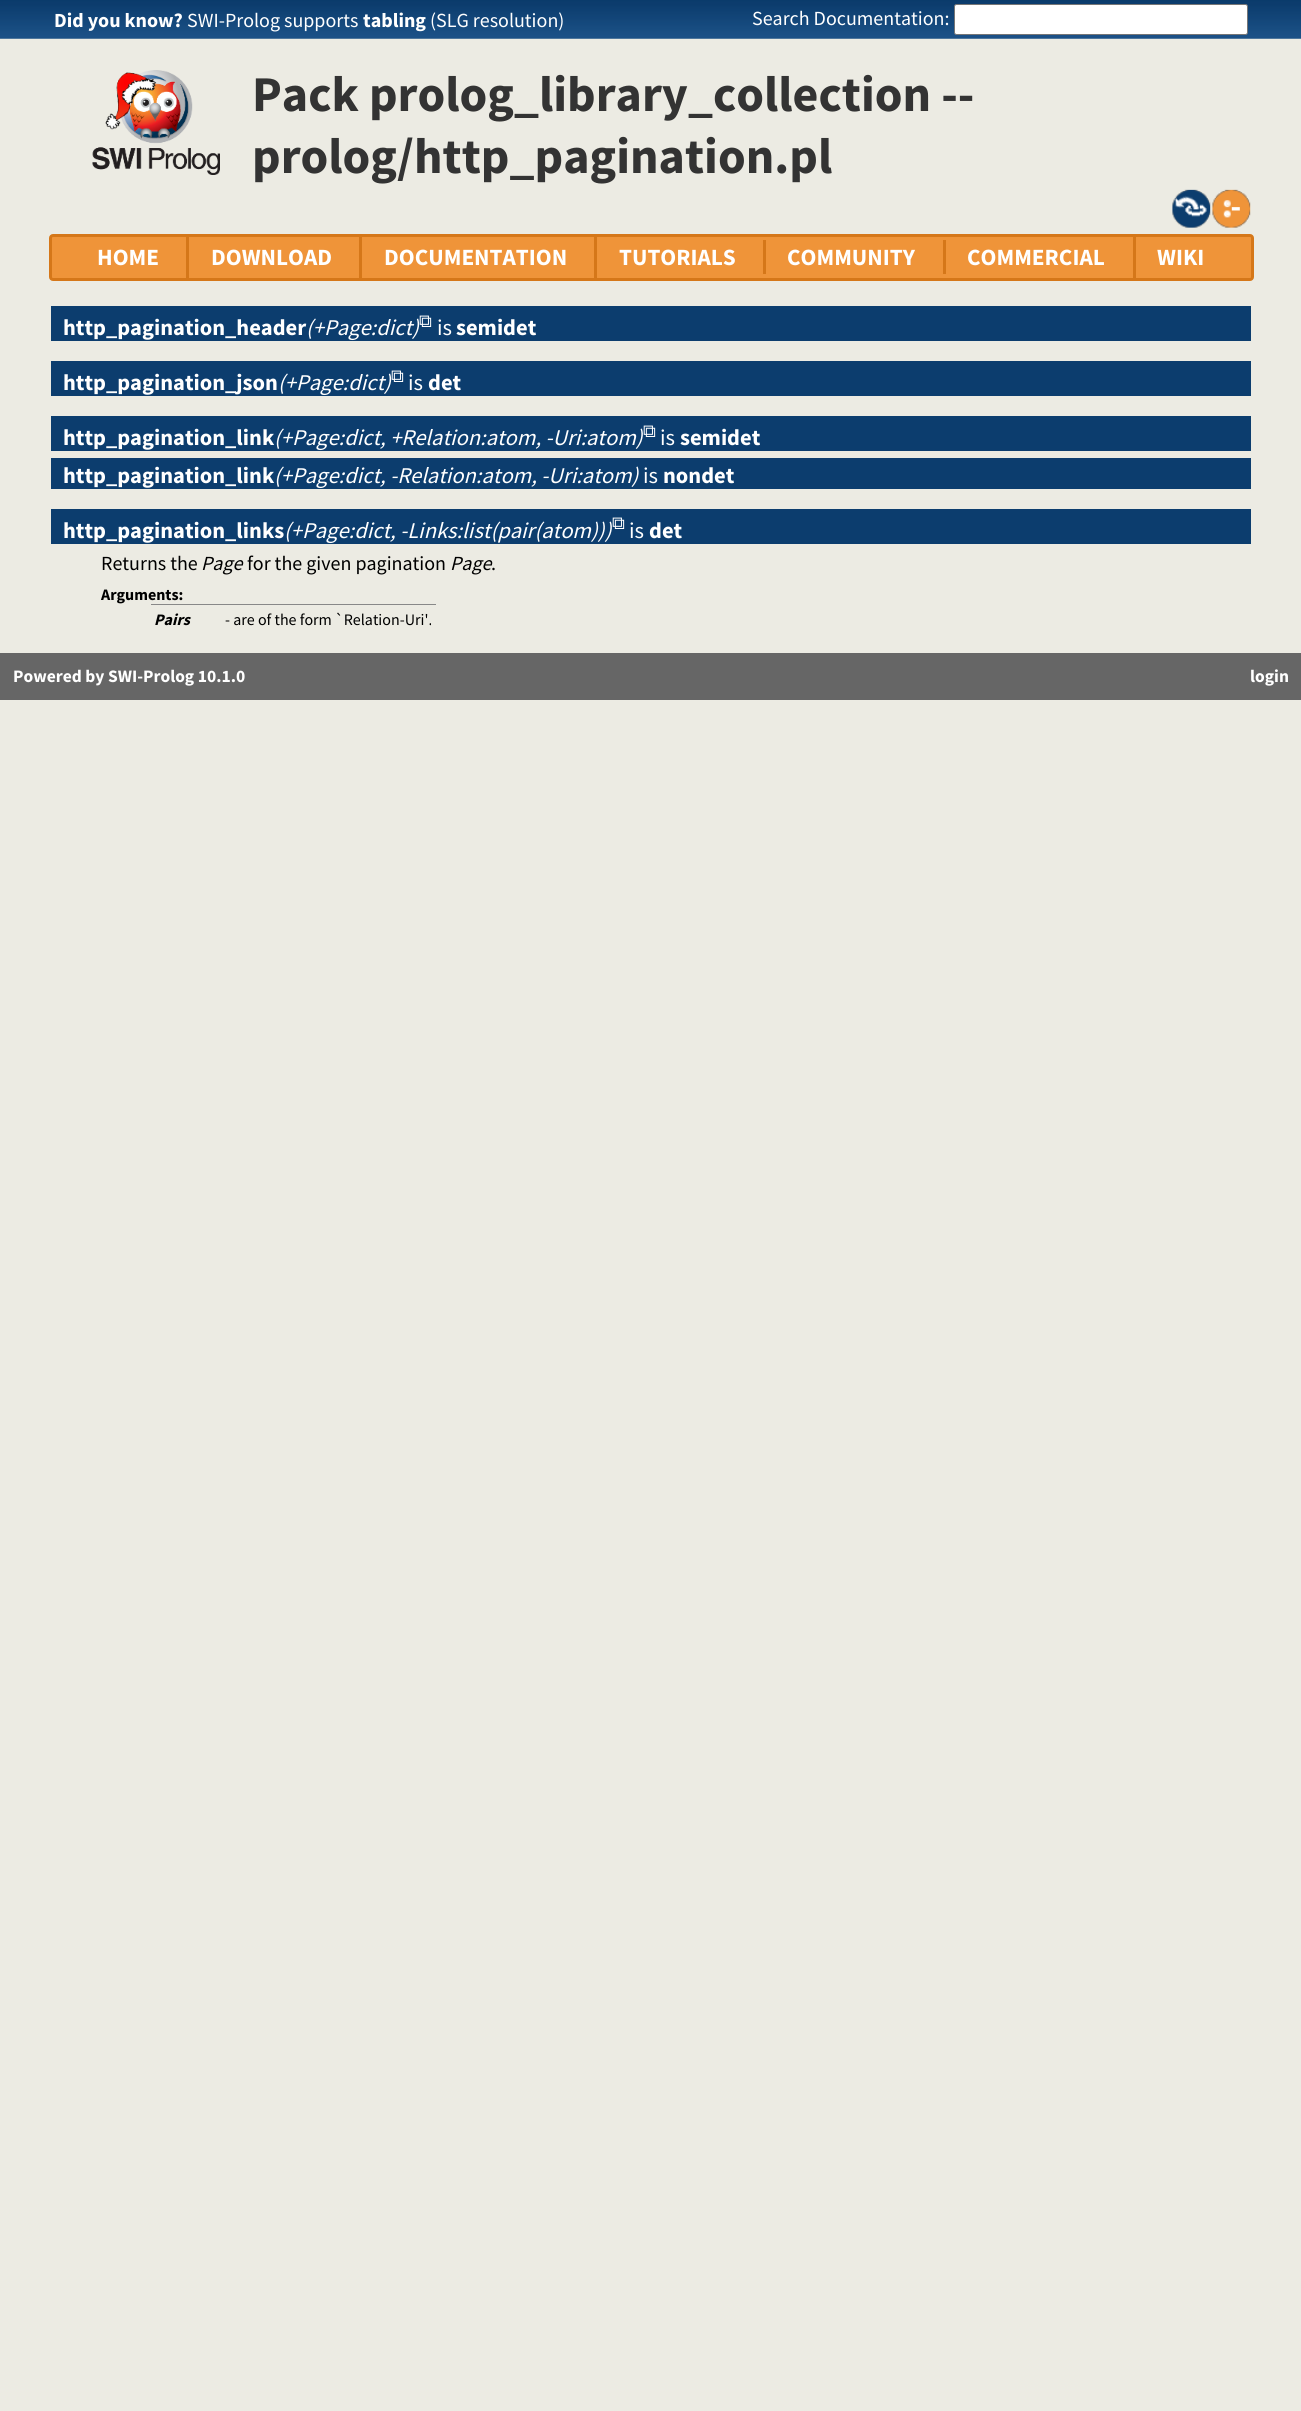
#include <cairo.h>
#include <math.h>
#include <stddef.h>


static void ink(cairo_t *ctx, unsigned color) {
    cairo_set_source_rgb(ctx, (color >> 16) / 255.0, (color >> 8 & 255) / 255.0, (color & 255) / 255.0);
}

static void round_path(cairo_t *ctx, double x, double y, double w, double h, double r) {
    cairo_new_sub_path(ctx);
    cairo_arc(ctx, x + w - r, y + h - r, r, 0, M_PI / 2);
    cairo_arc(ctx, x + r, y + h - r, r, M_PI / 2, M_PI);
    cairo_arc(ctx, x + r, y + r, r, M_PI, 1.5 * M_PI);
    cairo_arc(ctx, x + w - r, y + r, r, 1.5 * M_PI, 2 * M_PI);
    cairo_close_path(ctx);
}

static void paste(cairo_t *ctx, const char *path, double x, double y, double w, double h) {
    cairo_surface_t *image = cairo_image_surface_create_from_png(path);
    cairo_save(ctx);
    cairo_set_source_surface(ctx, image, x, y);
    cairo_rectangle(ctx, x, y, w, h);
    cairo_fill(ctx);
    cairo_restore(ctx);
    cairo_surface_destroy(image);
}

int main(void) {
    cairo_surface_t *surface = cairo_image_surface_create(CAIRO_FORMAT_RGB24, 1301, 2411);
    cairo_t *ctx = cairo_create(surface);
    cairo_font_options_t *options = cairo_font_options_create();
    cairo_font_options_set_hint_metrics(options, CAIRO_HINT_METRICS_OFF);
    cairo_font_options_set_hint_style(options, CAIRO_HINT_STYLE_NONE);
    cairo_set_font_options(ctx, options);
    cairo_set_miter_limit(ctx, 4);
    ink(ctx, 0xECEBE3);
    cairo_paint(ctx);
    paste(ctx, "media/1.png", 0, 0, 1301, 39);
    cairo_select_font_face(ctx, "Source Sans Pro", CAIRO_FONT_SLANT_NORMAL, CAIRO_FONT_WEIGHT_BOLD);
    cairo_set_font_size(ctx, 20);
    ink(ctx, 0xFFFFFF);
    cairo_move_to(ctx, 54, 27);
    cairo_show_text(ctx, "Did you know?");
    cairo_select_font_face(ctx, "Source Sans Pro", CAIRO_FONT_SLANT_NORMAL, CAIRO_FONT_WEIGHT_NORMAL);
    cairo_move_to(ctx, 187, 27);
    cairo_show_text(ctx, "SWI-Prolog supports");
    cairo_select_font_face(ctx, "Source Sans Pro", CAIRO_FONT_SLANT_NORMAL, CAIRO_FONT_WEIGHT_BOLD);
    cairo_move_to(ctx, 363, 27);
    cairo_show_text(ctx, "tabling");
    cairo_select_font_face(ctx, "Source Sans Pro", CAIRO_FONT_SLANT_NORMAL, CAIRO_FONT_WEIGHT_NORMAL);
    cairo_move_to(ctx, 430, 27);
    cairo_show_text(ctx, "(SLG resolution)");
    cairo_move_to(ctx, 752, 25);
    cairo_show_text(ctx, "Search Documentation:");
    round_path(ctx, 954.5, 4.5, 293, 30, 2);
    cairo_fill_preserve(ctx);
    ink(ctx, 0x767676);
    cairo_set_line_width(ctx, 1);
    cairo_stroke(ctx);
    paste(ctx, "media/2.png", 92, 70, 128, 105);
    cairo_select_font_face(ctx, "Source Sans Pro", CAIRO_FONT_SLANT_NORMAL, CAIRO_FONT_WEIGHT_BOLD);
    cairo_set_font_size(ctx, 50);
    ink(ctx, 0x333333);
    cairo_move_to(ctx, 252, 111);
    cairo_show_text(ctx, "Pack prolog_library_collection --");
    cairo_move_to(ctx, 252, 173);
    cairo_show_text(ctx, "prolog/http_pagination.pl");
    paste(ctx, "media/3.png", 1172, 189, 39, 39);
    paste(ctx, "media/4.png", 1212, 189, 39, 39);
    ink(ctx, 0xEF9439);
    round_path(ctx, 50.5, 235.5, 1202, 44, 2.5);
    cairo_fill_preserve(ctx);
    ink(ctx, 0xD57719);
    cairo_set_line_width(ctx, 3);
    cairo_stroke(ctx);
    cairo_set_font_size(ctx, 23.25);
    ink(ctx, 0xFFFFFF);
    cairo_move_to(ctx, 97, 265);
    cairo_show_text(ctx, "HOME");
    ink(ctx, 0xD57719);
    cairo_rectangle(ctx, 186, 236, 3, 43);
    cairo_fill(ctx);
    ink(ctx, 0xFFFFFF);
    cairo_move_to(ctx, 211, 265);
    cairo_show_text(ctx, "DOWNLOAD");
    ink(ctx, 0xD57719);
    cairo_rectangle(ctx, 359, 236, 3, 43);
    cairo_fill(ctx);
    ink(ctx, 0xFFFFFF);
    cairo_move_to(ctx, 384, 265);
    cairo_show_text(ctx, "DOCUMENTATION");
    ink(ctx, 0xD57719);
    cairo_rectangle(ctx, 594, 236, 3, 43);
    cairo_fill(ctx);
    ink(ctx, 0xFFFFFF);
    cairo_move_to(ctx, 619, 265);
    cairo_show_text(ctx, "TUTORIALS");
    ink(ctx, 0xD57719);
    cairo_rectangle(ctx, 763, 240, 3, 34);
    cairo_fill(ctx);
    ink(ctx, 0xFFFFFF);
    cairo_move_to(ctx, 787, 265);
    cairo_show_text(ctx, "COMMUNITY");
    ink(ctx, 0xD57719);
    cairo_rectangle(ctx, 943, 240, 3, 34);
    cairo_fill(ctx);
    ink(ctx, 0xFFFFFF);
    cairo_move_to(ctx, 967, 265);
    cairo_show_text(ctx, "COMMERCIAL");
    ink(ctx, 0xD57719);
    cairo_rectangle(ctx, 1133, 236, 3, 43);
    cairo_fill(ctx);
    ink(ctx, 0xFFFFFF);
    cairo_move_to(ctx, 1157, 265);
    cairo_show_text(ctx, "WIKI");
    ink(ctx, 0x0C3D6E);
    cairo_rectangle(ctx, 51, 306, 1200, 35);
    cairo_fill(ctx);
    cairo_set_font_size(ctx, 22.5);
    ink(ctx, 0xFFFFFF);
    cairo_move_to(ctx, 63, 335);
    cairo_show_text(ctx, "http_pagination_header");
    cairo_select_font_face(ctx, "Source Sans Pro", CAIRO_FONT_SLANT_ITALIC, CAIRO_FONT_WEIGHT_NORMAL);
    cairo_move_to(ctx, 306, 335);
    cairo_show_text(ctx, "(+Page:dict)");
    cairo_select_font_face(ctx, "FreeSerif", CAIRO_FONT_SLANT_NORMAL, CAIRO_FONT_WEIGHT_NORMAL);
    cairo_set_font_size(ctx, 18);
    cairo_move_to(ctx, 419, 327);
    cairo_show_text(ctx, "⧉");
    cairo_select_font_face(ctx, "Source Sans Pro", CAIRO_FONT_SLANT_NORMAL, CAIRO_FONT_WEIGHT_NORMAL);
    cairo_set_font_size(ctx, 22.5);
    cairo_move_to(ctx, 437, 335);
    cairo_show_text(ctx, "is");
    cairo_select_font_face(ctx, "Source Sans Pro", CAIRO_FONT_SLANT_NORMAL, CAIRO_FONT_WEIGHT_BOLD);
    cairo_move_to(ctx, 456, 335);
    cairo_show_text(ctx, "semidet");
    ink(ctx, 0x0C3D6E);
    cairo_rectangle(ctx, 51, 361, 1200, 35);
    cairo_fill(ctx);
    ink(ctx, 0xFFFFFF);
    cairo_move_to(ctx, 63, 390);
    cairo_show_text(ctx, "http_pagination_json");
    cairo_select_font_face(ctx, "Source Sans Pro", CAIRO_FONT_SLANT_ITALIC, CAIRO_FONT_WEIGHT_NORMAL);
    cairo_move_to(ctx, 278, 390);
    cairo_show_text(ctx, "(+Page:dict)");
    cairo_select_font_face(ctx, "FreeSerif", CAIRO_FONT_SLANT_NORMAL, CAIRO_FONT_WEIGHT_NORMAL);
    cairo_set_font_size(ctx, 18);
    cairo_move_to(ctx, 391, 382);
    cairo_show_text(ctx, "⧉");
    cairo_select_font_face(ctx, "Source Sans Pro", CAIRO_FONT_SLANT_NORMAL, CAIRO_FONT_WEIGHT_NORMAL);
    cairo_set_font_size(ctx, 22.5);
    cairo_move_to(ctx, 408, 390);
    cairo_show_text(ctx, "is");
    cairo_select_font_face(ctx, "Source Sans Pro", CAIRO_FONT_SLANT_NORMAL, CAIRO_FONT_WEIGHT_BOLD);
    cairo_move_to(ctx, 428, 390);
    cairo_show_text(ctx, "det");
    ink(ctx, 0x0C3D6E);
    cairo_rectangle(ctx, 51, 416, 1200, 35);
    cairo_fill(ctx);
    ink(ctx, 0xFFFFFF);
    cairo_move_to(ctx, 63, 445);
    cairo_show_text(ctx, "http_pagination_link");
    cairo_select_font_face(ctx, "Source Sans Pro", CAIRO_FONT_SLANT_ITALIC, CAIRO_FONT_WEIGHT_NORMAL);
    cairo_move_to(ctx, 274, 445);
    cairo_show_text(ctx, "(+Page:dict, +Relation:atom, -Uri:atom)");
    cairo_select_font_face(ctx, "FreeSerif", CAIRO_FONT_SLANT_NORMAL, CAIRO_FONT_WEIGHT_NORMAL);
    cairo_set_font_size(ctx, 18);
    cairo_move_to(ctx, 643, 437);
    cairo_show_text(ctx, "⧉");
    cairo_select_font_face(ctx, "Source Sans Pro", CAIRO_FONT_SLANT_NORMAL, CAIRO_FONT_WEIGHT_NORMAL);
    cairo_set_font_size(ctx, 22.5);
    cairo_move_to(ctx, 660, 445);
    cairo_show_text(ctx, "is");
    cairo_select_font_face(ctx, "Source Sans Pro", CAIRO_FONT_SLANT_NORMAL, CAIRO_FONT_WEIGHT_BOLD);
    cairo_move_to(ctx, 680, 445);
    cairo_show_text(ctx, "semidet");
    ink(ctx, 0x0C3D6E);
    cairo_rectangle(ctx, 51, 458, 1200, 31);
    cairo_fill(ctx);
    ink(ctx, 0xFFFFFF);
    cairo_move_to(ctx, 63, 483);
    cairo_show_text(ctx, "http_pagination_link");
    cairo_select_font_face(ctx, "Source Sans Pro", CAIRO_FONT_SLANT_ITALIC, CAIRO_FONT_WEIGHT_NORMAL);
    cairo_move_to(ctx, 274, 483);
    cairo_show_text(ctx, "(+Page:dict, -Relation:atom, -Uri:atom)");
    cairo_select_font_face(ctx, "Source Sans Pro", CAIRO_FONT_SLANT_NORMAL, CAIRO_FONT_WEIGHT_NORMAL);
    cairo_move_to(ctx, 643, 483);
    cairo_show_text(ctx, "is");
    cairo_select_font_face(ctx, "Source Sans Pro", CAIRO_FONT_SLANT_NORMAL, CAIRO_FONT_WEIGHT_BOLD);
    cairo_move_to(ctx, 663, 483);
    cairo_show_text(ctx, "nondet");
    ink(ctx, 0x0C3D6E);
    cairo_rectangle(ctx, 51, 509, 1200, 35);
    cairo_fill(ctx);
    ink(ctx, 0xFFFFFF);
    cairo_move_to(ctx, 63, 538);
    cairo_show_text(ctx, "http_pagination_links");
    cairo_select_font_face(ctx, "Source Sans Pro", CAIRO_FONT_SLANT_ITALIC, CAIRO_FONT_WEIGHT_NORMAL);
    cairo_move_to(ctx, 284, 538);
    cairo_show_text(ctx, "(+Page:dict, -Links:list(pair(atom)))");
    cairo_select_font_face(ctx, "FreeSerif", CAIRO_FONT_SLANT_NORMAL, CAIRO_FONT_WEIGHT_NORMAL);
    cairo_set_font_size(ctx, 18);
    cairo_move_to(ctx, 612, 529);
    cairo_show_text(ctx, "⧉");
    cairo_select_font_face(ctx, "Source Sans Pro", CAIRO_FONT_SLANT_NORMAL, CAIRO_FONT_WEIGHT_NORMAL);
    cairo_set_font_size(ctx, 22.5);
    cairo_move_to(ctx, 629, 538);
    cairo_show_text(ctx, "is");
    cairo_select_font_face(ctx, "Source Sans Pro", CAIRO_FONT_SLANT_NORMAL, CAIRO_FONT_WEIGHT_BOLD);
    cairo_move_to(ctx, 649, 538);
    cairo_show_text(ctx, "det");
    cairo_select_font_face(ctx, "Source Sans Pro", CAIRO_FONT_SLANT_NORMAL, CAIRO_FONT_WEIGHT_NORMAL);
    cairo_set_font_size(ctx, 20);
    ink(ctx, 0x000000);
    cairo_move_to(ctx, 101, 570);
    cairo_show_text(ctx, "Returns the");
    cairo_select_font_face(ctx, "Source Sans Pro", CAIRO_FONT_SLANT_ITALIC, CAIRO_FONT_WEIGHT_NORMAL);
    cairo_move_to(ctx, 201, 570);
    cairo_show_text(ctx, "Page");
    cairo_select_font_face(ctx, "Source Sans Pro", CAIRO_FONT_SLANT_NORMAL, CAIRO_FONT_WEIGHT_NORMAL);
    cairo_move_to(ctx, 247, 570);
    cairo_show_text(ctx, "for the given pagination");
    cairo_select_font_face(ctx, "Source Sans Pro", CAIRO_FONT_SLANT_ITALIC, CAIRO_FONT_WEIGHT_NORMAL);
    cairo_move_to(ctx, 450, 570);
    cairo_show_text(ctx, "Page");
    cairo_select_font_face(ctx, "Source Sans Pro", CAIRO_FONT_SLANT_NORMAL, CAIRO_FONT_WEIGHT_NORMAL);
    cairo_move_to(ctx, 491, 570);
    cairo_show_text(ctx, ".");
    cairo_select_font_face(ctx, "Source Sans Pro", CAIRO_FONT_SLANT_NORMAL, CAIRO_FONT_WEIGHT_BOLD);
    cairo_set_font_size(ctx, 16);
    cairo_move_to(ctx, 101, 600);
    cairo_show_text(ctx, "Arguments:");
    ink(ctx, 0x888888);
    cairo_rectangle(ctx, 151, 604, 285, 1);
    cairo_fill(ctx);
    cairo_select_font_face(ctx, "Source Sans Pro", CAIRO_FONT_SLANT_ITALIC, CAIRO_FONT_WEIGHT_BOLD);
    ink(ctx, 0x000000);
    cairo_move_to(ctx, 154, 625);
    cairo_show_text(ctx, "Pairs");
    cairo_select_font_face(ctx, "Source Sans Pro", CAIRO_FONT_SLANT_NORMAL, CAIRO_FONT_WEIGHT_NORMAL);
    cairo_move_to(ctx, 225, 625);
    cairo_show_text(ctx, "- are of the form `Relation-Uri'.");
    ink(ctx, 0x666666);
    cairo_rectangle(ctx, 0, 653, 1301, 47);
    cairo_fill(ctx);
    cairo_select_font_face(ctx, "Source Sans Pro", CAIRO_FONT_SLANT_NORMAL, CAIRO_FONT_WEIGHT_BOLD);
    cairo_set_font_size(ctx, 17.5);
    ink(ctx, 0xFFFFFF);
    cairo_move_to(ctx, 13, 682);
    cairo_show_text(ctx, "Powered by SWI-Prolog 10.1.0");
    cairo_move_to(ctx, 1250, 682);
    cairo_show_text(ctx, "login");
    cairo_surface_write_to_png(surface, "image.png");
    cairo_font_options_destroy(options);
    cairo_destroy(ctx);
    cairo_surface_destroy(surface);
    return 0;
}
